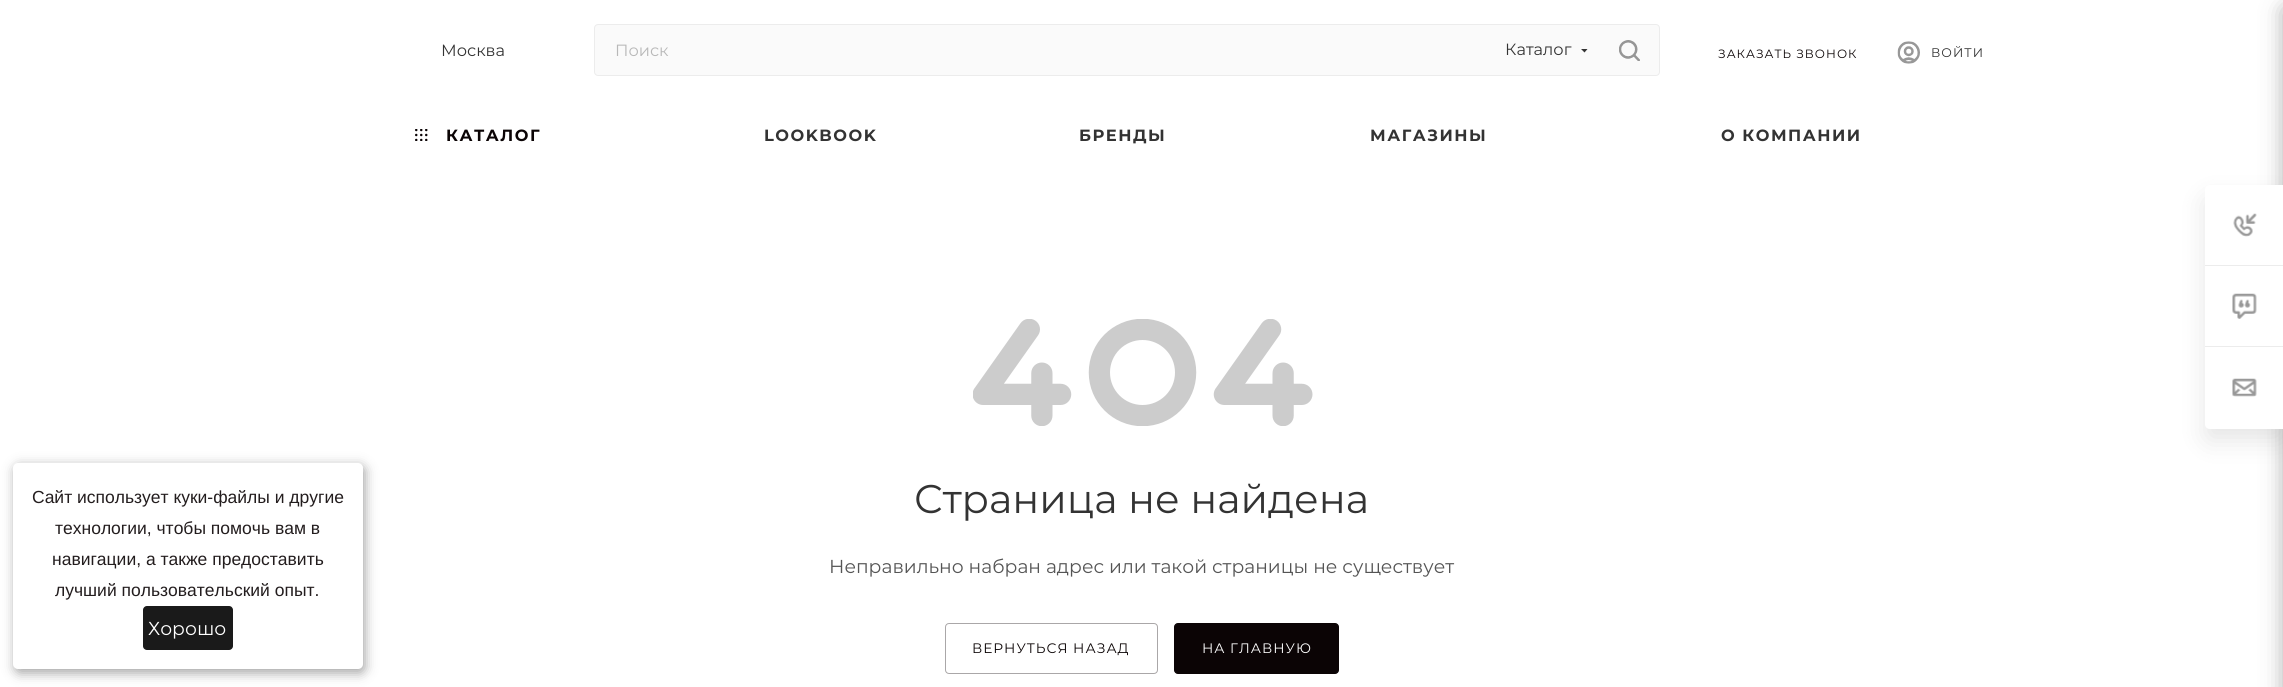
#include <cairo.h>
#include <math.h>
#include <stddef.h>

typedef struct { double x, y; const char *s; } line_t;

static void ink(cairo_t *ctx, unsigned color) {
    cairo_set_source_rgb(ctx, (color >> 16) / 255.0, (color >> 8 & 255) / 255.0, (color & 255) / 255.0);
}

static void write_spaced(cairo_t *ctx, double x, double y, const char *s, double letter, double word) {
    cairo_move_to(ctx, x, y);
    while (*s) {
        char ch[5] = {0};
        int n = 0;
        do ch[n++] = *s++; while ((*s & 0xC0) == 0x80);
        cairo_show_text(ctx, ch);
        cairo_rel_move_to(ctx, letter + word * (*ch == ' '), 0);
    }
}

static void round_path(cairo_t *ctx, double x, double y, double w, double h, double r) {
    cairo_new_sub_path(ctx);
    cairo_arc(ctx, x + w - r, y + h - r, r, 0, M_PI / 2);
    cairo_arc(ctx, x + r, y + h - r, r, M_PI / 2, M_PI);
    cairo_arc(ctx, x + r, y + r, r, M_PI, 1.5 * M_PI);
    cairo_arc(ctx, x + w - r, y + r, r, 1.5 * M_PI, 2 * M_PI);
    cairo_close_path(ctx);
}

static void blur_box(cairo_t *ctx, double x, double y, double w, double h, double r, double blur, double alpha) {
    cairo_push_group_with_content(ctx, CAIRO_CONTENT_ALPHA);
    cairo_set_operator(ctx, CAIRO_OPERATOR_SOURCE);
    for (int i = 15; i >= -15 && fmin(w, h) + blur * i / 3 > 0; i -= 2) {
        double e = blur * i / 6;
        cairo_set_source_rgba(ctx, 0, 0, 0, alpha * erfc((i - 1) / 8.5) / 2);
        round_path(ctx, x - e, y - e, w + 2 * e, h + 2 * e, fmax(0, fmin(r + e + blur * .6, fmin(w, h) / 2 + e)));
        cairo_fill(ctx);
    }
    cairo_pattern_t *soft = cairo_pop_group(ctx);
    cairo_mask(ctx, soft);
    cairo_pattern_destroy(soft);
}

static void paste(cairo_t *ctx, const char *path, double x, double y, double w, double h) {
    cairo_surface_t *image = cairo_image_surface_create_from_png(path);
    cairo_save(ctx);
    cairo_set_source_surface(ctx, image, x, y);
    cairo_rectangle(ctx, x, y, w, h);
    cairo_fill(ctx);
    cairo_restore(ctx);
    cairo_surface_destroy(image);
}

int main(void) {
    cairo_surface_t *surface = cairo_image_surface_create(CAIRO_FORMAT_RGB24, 2283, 687);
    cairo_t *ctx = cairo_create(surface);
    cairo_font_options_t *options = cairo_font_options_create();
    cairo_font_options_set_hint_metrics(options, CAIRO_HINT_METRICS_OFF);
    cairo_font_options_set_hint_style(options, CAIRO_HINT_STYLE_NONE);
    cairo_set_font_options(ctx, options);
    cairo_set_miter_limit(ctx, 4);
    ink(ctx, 0xFFFFFF);
    cairo_paint(ctx);
    ink(ctx, 0x1A1A1A);
    blur_box(ctx, 15, 466, 350, 207, 5, 6, 0.4);
    ink(ctx, 0xFFFFFF);
    round_path(ctx, 13, 463, 350, 206, 5);
    cairo_fill(ctx);
    cairo_select_font_face(ctx, "Liberation Sans", CAIRO_FONT_SLANT_NORMAL, CAIRO_FONT_WEIGHT_NORMAL);
    cairo_set_font_size(ctx, 17.5);
    ink(ctx, 0x231D1E);
    {
        static const line_t items[] = {
            {32, 503, "Сайт использует куки-файлы и другие"},
            {55, 534, "технологии, чтобы помочь вам в"},
            {52, 565, "навигации, а также предоставить"},
            {55, 596, "лучший пользовательский опыт."},
        };
        for (size_t i = 0; i < sizeof items / sizeof *items; i++) {
            cairo_move_to(ctx, items[i].x, items[i].y);
            cairo_show_text(ctx, items[i].s);
        }
    }
    ink(ctx, 0x1A1A1A);
    round_path(ctx, 143, 606, 90, 44, 4);
    cairo_fill(ctx);
    cairo_select_font_face(ctx, "Montserrat", CAIRO_FONT_SLANT_NORMAL, CAIRO_FONT_WEIGHT_NORMAL);
    cairo_set_font_size(ctx, 18.75);
    ink(ctx, 0xFFFFFF);
    cairo_move_to(ctx, 148, 635);
    cairo_show_text(ctx, "Хорошо");
    cairo_set_font_size(ctx, 16.25);
    ink(ctx, 0x333333);
    cairo_move_to(ctx, 441, 56);
    cairo_show_text(ctx, "Москва");
    ink(ctx, 0xFAFAFA);
    round_path(ctx, 594.5, 24.5, 1065, 51, 3.5);
    cairo_fill_preserve(ctx);
    ink(ctx, 0xECECEC);
    cairo_set_line_width(ctx, 1);
    cairo_stroke(ctx);
    ink(ctx, 0xB8B8B8);
    cairo_move_to(ctx, 615, 56);
    cairo_show_text(ctx, "Поиск");
    ink(ctx, 0x333333);
    cairo_move_to(ctx, 1505, 55);
    cairo_show_text(ctx, "Каталог");
    cairo_set_fill_rule(ctx, CAIRO_FILL_RULE_EVEN_ODD);
    cairo_new_path(ctx);
    cairo_move_to(ctx, 1581, 49);
    cairo_line_to(ctx, 1587.5, 49);
    cairo_line_to(ctx, 1584.5, 52.5);
    cairo_close_path(ctx);
    cairo_fill(ctx);
    paste(ctx, "media/1.png", 1619, 40, 21, 21);
    cairo_set_font_size(ctx, 12);
    ink(ctx, 0x0B0405);
    write_spaced(ctx, 1718, 58, "ЗАКАЗАТЬ ЗВОНОК", 1, 0);
    paste(ctx, "media/2.png", 1897, 41, 23, 23);
    cairo_set_font_size(ctx, 12.5);
    ink(ctx, 0x333333);
    write_spaced(ctx, 1931, 57, "ВОЙТИ", 1, 0);
    paste(ctx, "media/3.png", 415, 129, 13, 12);
    cairo_select_font_face(ctx, "Montserrat", CAIRO_FONT_SLANT_NORMAL, CAIRO_FONT_WEIGHT_BOLD);
    cairo_set_font_size(ctx, 16.25);
    ink(ctx, 0x0B0405);
    write_spaced(ctx, 446, 141, "КАТАЛОГ", 1.5, 0);
    ink(ctx, 0x333333);
    {
        static const line_t items[] = {
            {764, 141, "LOOKBOOK"},
            {1079, 141, "БРЕНДЫ"},
            {1370, 141, "МАГАЗИНЫ"},
            {1721, 141, "О КОМПАНИИ"},
        };
        for (size_t i = 0; i < sizeof items / sizeof *items; i++) {
            write_spaced(ctx, items[i].x, items[i].y, items[i].s, 1.5, 0);
        }
    }
    paste(ctx, "media/4.png", 973, 319, 340, 107);
    cairo_select_font_face(ctx, "Montserrat", CAIRO_FONT_SLANT_NORMAL, CAIRO_FONT_WEIGHT_NORMAL);
    cairo_set_font_size(ctx, 40);
    cairo_move_to(ctx, 914, 513);
    cairo_show_text(ctx, "Страница не найдена");
    cairo_set_font_size(ctx, 18.75);
    ink(ctx, 0x555555);
    cairo_move_to(ctx, 829, 573);
    cairo_show_text(ctx, "Неправильно набран адрес или такой страницы не существует");
    round_path(ctx, 945.5, 623.5, 212, 50, 3.5);
    ink(ctx, 0xAAA7A8);
    cairo_stroke(ctx);
    cairo_set_font_size(ctx, 13.75);
    ink(ctx, 0x0B0405);
    write_spaced(ctx, 972, 653, "ВЕРНУТЬСЯ НАЗАД", 1, 0);
    round_path(ctx, 1174.5, 623.5, 164, 50, 3.5);
    cairo_fill_preserve(ctx);
    cairo_stroke(ctx);
    ink(ctx, 0xFFFFFF);
    write_spaced(ctx, 1202, 653, "НА ГЛАВНУЮ", 1, 0);
    ink(ctx, 0x2C2C2C);
    blur_box(ctx, 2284, 8, 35, 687, 2.5, 11, 0.4);
    ink(ctx, 0x000000);
    blur_box(ctx, 2205, 198, 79, 243, 5, 12.5, 0.1);
    ink(ctx, 0xFFFFFF);
    cairo_new_path(ctx);
    cairo_move_to(ctx, 2210, 185);
    cairo_line_to(ctx, 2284, 185);
    cairo_line_to(ctx, 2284, 429);
    cairo_line_to(ctx, 2210, 429);
    cairo_curve_to(ctx, 2207, 429, 2205, 427, 2205, 424);
    cairo_line_to(ctx, 2205, 190);
    cairo_curve_to(ctx, 2205, 187, 2207, 185, 2210, 185);
    cairo_close_path(ctx);
    cairo_fill(ctx);
    ink(ctx, 0xECECEC);
    cairo_rectangle(ctx, 2205, 265, 78, 1);
    cairo_fill(ctx);
    paste(ctx, "media/5.png", 2233, 213, 24, 24);
    cairo_rectangle(ctx, 2205, 346, 78, 1);
    cairo_fill(ctx);
    paste(ctx, "media/6.png", 2232, 293, 25, 26);
    paste(ctx, "media/7.png", 2232, 378, 25, 19);
    cairo_surface_write_to_png(surface, "image.png");
    cairo_font_options_destroy(options);
    cairo_destroy(ctx);
    cairo_surface_destroy(surface);
    return 0;
}
